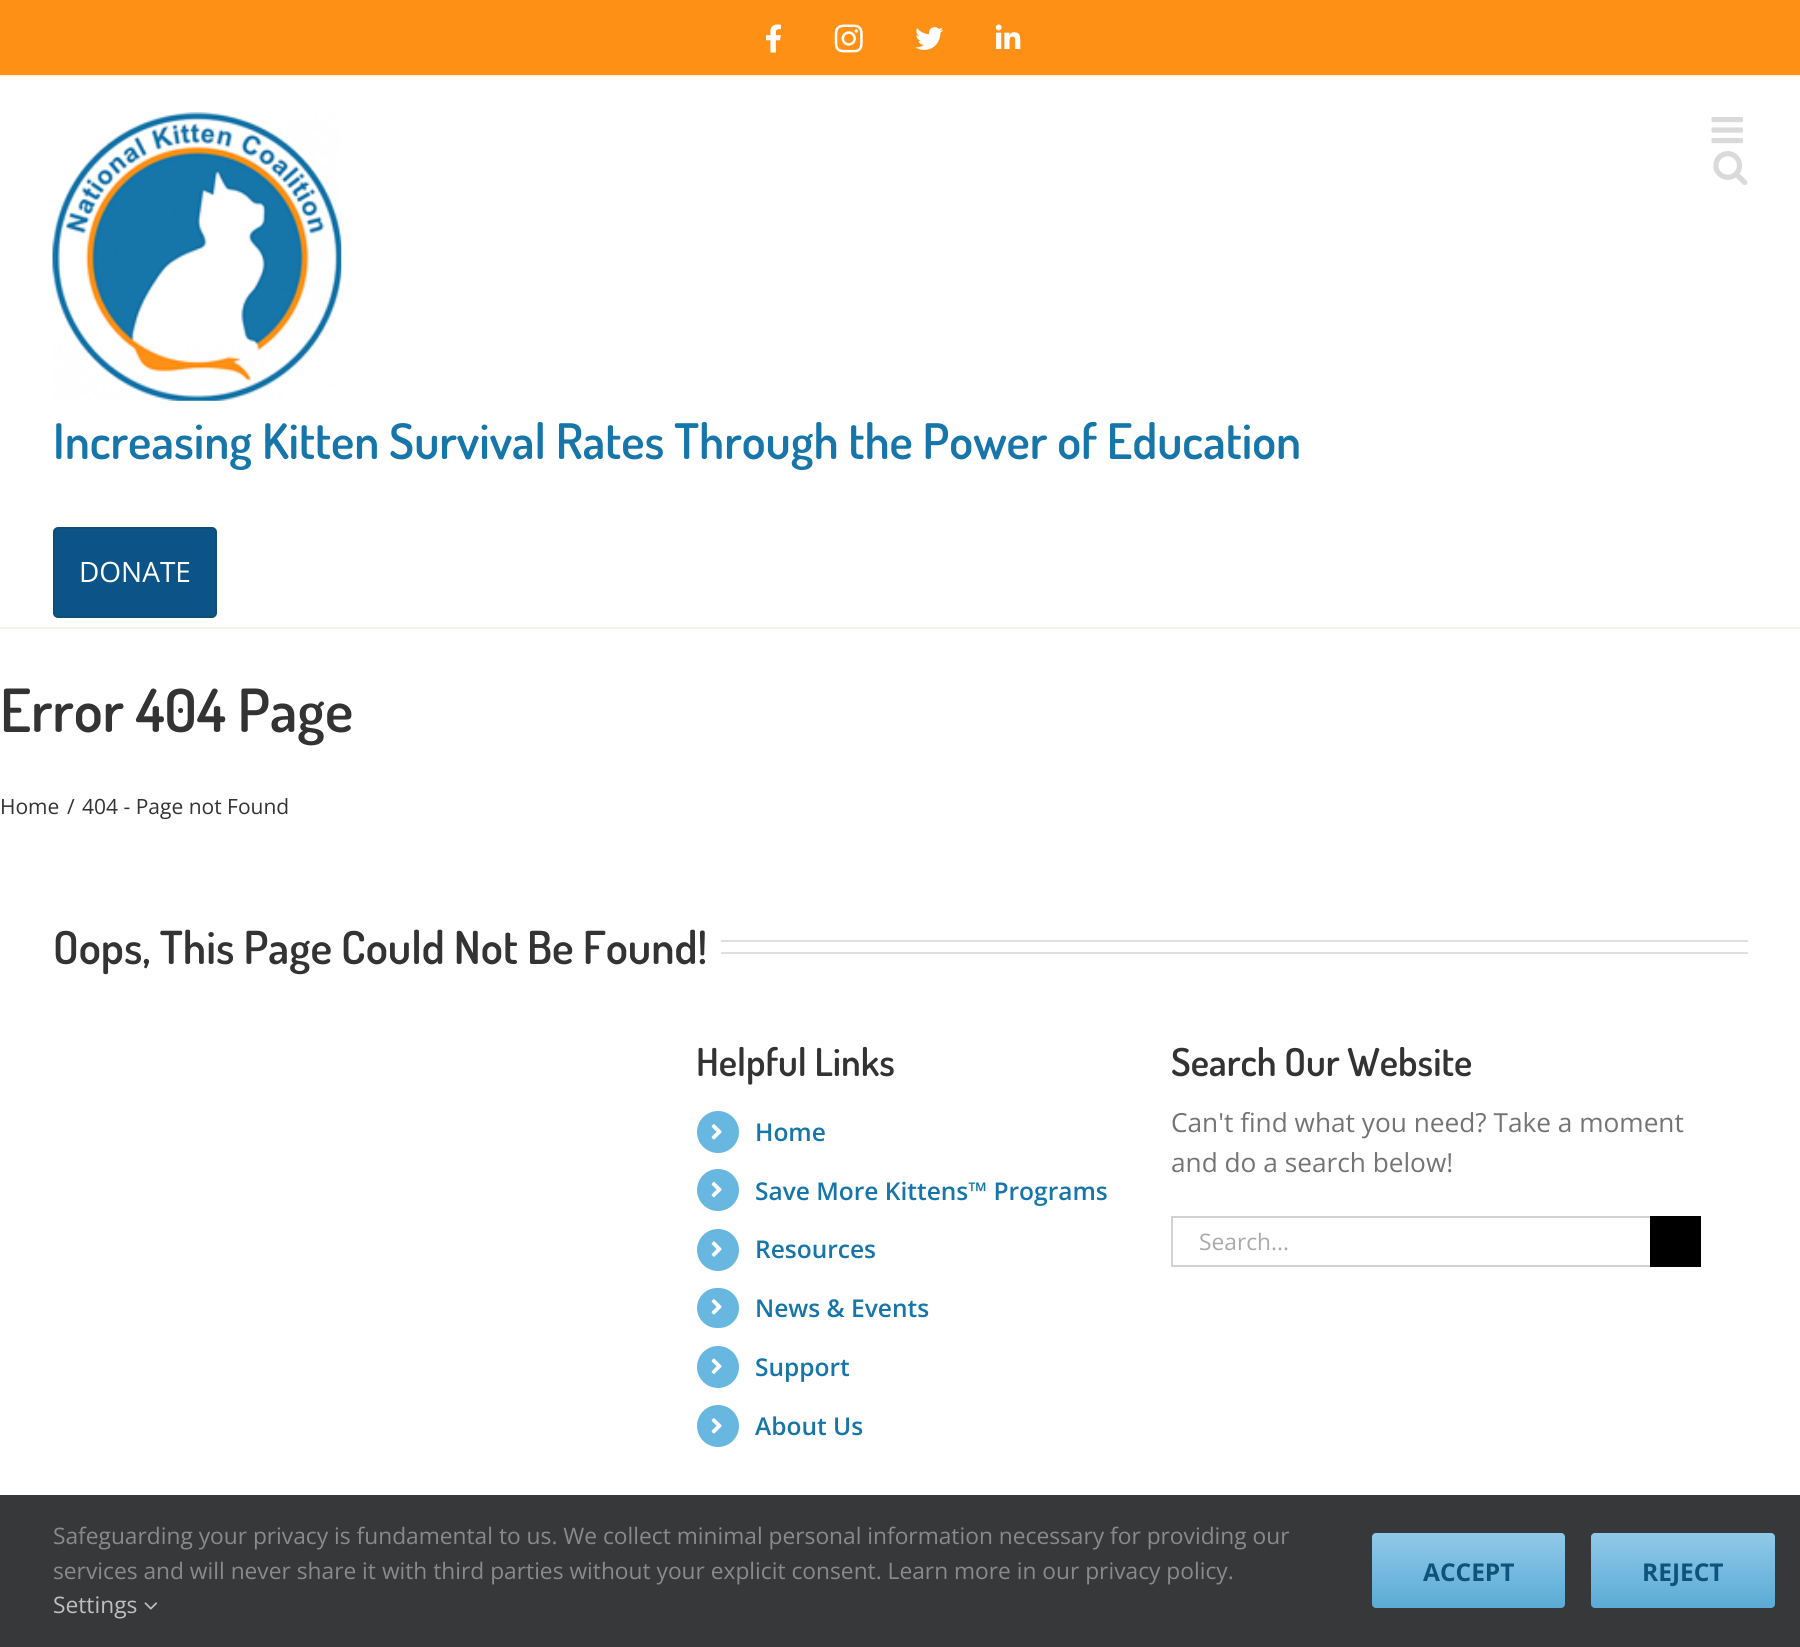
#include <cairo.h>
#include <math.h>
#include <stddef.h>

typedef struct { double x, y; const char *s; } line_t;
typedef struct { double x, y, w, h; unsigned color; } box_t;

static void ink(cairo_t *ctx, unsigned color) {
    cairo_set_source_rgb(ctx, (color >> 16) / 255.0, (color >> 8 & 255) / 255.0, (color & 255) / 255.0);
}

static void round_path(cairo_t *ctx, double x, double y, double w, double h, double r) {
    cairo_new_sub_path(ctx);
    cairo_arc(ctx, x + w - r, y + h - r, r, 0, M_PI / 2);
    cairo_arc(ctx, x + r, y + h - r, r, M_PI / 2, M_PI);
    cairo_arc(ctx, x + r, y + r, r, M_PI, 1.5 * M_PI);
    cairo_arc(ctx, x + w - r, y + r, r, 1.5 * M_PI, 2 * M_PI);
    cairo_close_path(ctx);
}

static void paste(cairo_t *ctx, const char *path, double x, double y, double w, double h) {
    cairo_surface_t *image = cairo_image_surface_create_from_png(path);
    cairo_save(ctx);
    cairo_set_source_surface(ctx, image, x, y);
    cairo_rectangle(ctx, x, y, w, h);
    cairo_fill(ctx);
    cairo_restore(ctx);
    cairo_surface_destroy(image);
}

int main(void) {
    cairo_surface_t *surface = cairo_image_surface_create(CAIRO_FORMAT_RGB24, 1800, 1647);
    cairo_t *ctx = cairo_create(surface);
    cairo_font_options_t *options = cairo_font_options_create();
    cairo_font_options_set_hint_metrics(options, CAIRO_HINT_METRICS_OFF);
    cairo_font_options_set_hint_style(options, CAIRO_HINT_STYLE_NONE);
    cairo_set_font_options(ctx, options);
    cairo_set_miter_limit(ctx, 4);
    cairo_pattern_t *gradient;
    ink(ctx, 0xFFFFFF);
    cairo_paint(ctx);
    ink(ctx, 0xFF9016);
    cairo_rectangle(ctx, 0, 0, 1800, 75);
    cairo_fill(ctx);
    ink(ctx, 0xFFF2E3);
    cairo_rectangle(ctx, 0, 75, 1800, 2);
    cairo_fill(ctx);
    paste(ctx, "media/1.png", 766, 24, 15, 29);
    paste(ctx, "media/2.png", 834, 24, 29, 29);
    paste(ctx, "media/3.png", 915, 27, 29, 23);
    paste(ctx, "media/4.png", 995, 24, 26, 25);
    cairo_rectangle(ctx, 0, 627, 1800, 2);
    cairo_fill(ctx);
    paste(ctx, "media/5.png", 52, 112, 290, 289);
    paste(ctx, "media/6.png", 1711, 117, 32, 27);
    paste(ctx, "media/7.png", 1713, 151, 35, 34);
    cairo_select_font_face(ctx, "Dosis SemiBold", CAIRO_FONT_SLANT_NORMAL, CAIRO_FONT_WEIGHT_NORMAL);
    cairo_set_font_size(ctx, 49);
    ink(ctx, 0x1675A9);
    cairo_move_to(ctx, 53, 459);
    cairo_show_text(ctx, "Increasing Kitten Survival Rates Through the Power of Education");
    ink(ctx, 0x0C5487);
    round_path(ctx, 54, 528, 162, 89, 4);
    cairo_fill_preserve(ctx);
    ink(ctx, 0x124D77);
    cairo_stroke(ctx);
    cairo_select_font_face(ctx, "Open Sans", CAIRO_FONT_SLANT_NORMAL, CAIRO_FONT_WEIGHT_NORMAL);
    cairo_set_font_size(ctx, 28);
    ink(ctx, 0xFFFFFF);
    cairo_move_to(ctx, 79, 582);
    cairo_show_text(ctx, "DONATE");
    cairo_select_font_face(ctx, "Dosis SemiBold", CAIRO_FONT_SLANT_NORMAL, CAIRO_FONT_WEIGHT_NORMAL);
    cairo_set_font_size(ctx, 59.5);
    ink(ctx, 0x333333);
    cairo_move_to(ctx, 0, 732);
    cairo_show_text(ctx, "Error 404 Page");
    cairo_select_font_face(ctx, "Open Sans", CAIRO_FONT_SLANT_NORMAL, CAIRO_FONT_WEIGHT_NORMAL);
    cairo_set_font_size(ctx, 21);
    {
        static const line_t items[] = {
            {0, 814, "Home"},
            {67, 814, "/"},
            {82, 814, "404 - Page not Found"},
        };
        for (size_t i = 0; i < sizeof items / sizeof *items; i++) {
            cairo_move_to(ctx, items[i].x, items[i].y);
            cairo_show_text(ctx, items[i].s);
        }
    }
    cairo_select_font_face(ctx, "Dosis SemiBold", CAIRO_FONT_SLANT_NORMAL, CAIRO_FONT_WEIGHT_NORMAL);
    cairo_set_font_size(ctx, 45.5);
    cairo_move_to(ctx, 53, 964);
    cairo_show_text(ctx, "Oops, This Page Could Not Be Found!");
    ink(ctx, 0xE0DEDE);
    cairo_rectangle(ctx, 721, 940, 1027, 2);
    cairo_fill(ctx);
    cairo_rectangle(ctx, 721, 952, 1027, 2);
    cairo_fill(ctx);
    cairo_set_font_size(ctx, 38.5);
    ink(ctx, 0x333333);
    cairo_move_to(ctx, 696, 1076);
    cairo_show_text(ctx, "Helpful Links");
    ink(ctx, 0x67B7E1);
    cairo_new_path(ctx);
    cairo_arc(ctx, 718, 1132, 21, 0, 2 * M_PI);
    cairo_fill(ctx);
    paste(ctx, "media/8.png", 711, 1124, 11, 16);
    cairo_select_font_face(ctx, "Open Sans SemiBold", CAIRO_FONT_SLANT_NORMAL, CAIRO_FONT_WEIGHT_NORMAL);
    cairo_set_font_size(ctx, 24.5);
    ink(ctx, 0x1675A9);
    cairo_move_to(ctx, 755, 1141);
    cairo_show_text(ctx, "Home");
    ink(ctx, 0x67B7E1);
    cairo_new_path(ctx);
    cairo_arc(ctx, 718, 1190, 21, 0, 2 * M_PI);
    cairo_fill(ctx);
    paste(ctx, "media/9.png", 711, 1181, 11, 17);
    ink(ctx, 0x1675A9);
    cairo_move_to(ctx, 755, 1200);
    cairo_show_text(ctx, "Save More Kittens™ Programs");
    ink(ctx, 0x67B7E1);
    cairo_new_path(ctx);
    cairo_arc(ctx, 718, 1250, 21, 0, 2 * M_PI);
    cairo_fill(ctx);
    paste(ctx, "media/10.png", 711, 1241, 11, 16);
    ink(ctx, 0x1675A9);
    cairo_move_to(ctx, 755, 1258);
    cairo_show_text(ctx, "Resources");
    ink(ctx, 0x67B7E1);
    round_path(ctx, 697, 1288, 42, 40, 20);
    cairo_fill(ctx);
    paste(ctx, "media/8.png", 711, 1299, 11, 16);
    ink(ctx, 0x1675A9);
    cairo_move_to(ctx, 755, 1317);
    cairo_show_text(ctx, "News & Events");
    ink(ctx, 0x67B7E1);
    cairo_new_path(ctx);
    cairo_arc(ctx, 718, 1367, 21, 0, 2 * M_PI);
    cairo_fill(ctx);
    paste(ctx, "media/11.png", 711, 1358, 11, 16);
    ink(ctx, 0x1675A9);
    cairo_move_to(ctx, 755, 1376);
    cairo_show_text(ctx, "Support");
    ink(ctx, 0x67B7E1);
    cairo_new_path(ctx);
    cairo_arc(ctx, 718, 1426, 21, 0, 2 * M_PI);
    cairo_fill(ctx);
    paste(ctx, "media/8.png", 711, 1418, 11, 16);
    ink(ctx, 0x1675A9);
    cairo_move_to(ctx, 755, 1435);
    cairo_show_text(ctx, "About Us");
    cairo_select_font_face(ctx, "Dosis SemiBold", CAIRO_FONT_SLANT_NORMAL, CAIRO_FONT_WEIGHT_NORMAL);
    cairo_set_font_size(ctx, 38.5);
    ink(ctx, 0x333333);
    cairo_move_to(ctx, 1171, 1076);
    cairo_show_text(ctx, "Search Our Website");
    cairo_select_font_face(ctx, "Open Sans", CAIRO_FONT_SLANT_NORMAL, CAIRO_FONT_WEIGHT_NORMAL);
    cairo_set_font_size(ctx, 26.25);
    ink(ctx, 0x747474);
    cairo_move_to(ctx, 1171, 1132);
    cairo_show_text(ctx, "Can't find what you need? Take a moment");
    cairo_move_to(ctx, 1171, 1172);
    cairo_show_text(ctx, "and do a search below!");
    {
        static const box_t items[] = {
            {1171, 1216, 479, 2, 0xD2D2D2},
            {1171, 1265, 479, 2, 0xD2D2D2},
            {1171, 1216, 2, 51, 0xD2D2D2},
        };
        for (size_t i = 0; i < sizeof items / sizeof *items; i++) {
            ink(ctx, items[i].color);
            cairo_rectangle(ctx, items[i].x, items[i].y, items[i].w, items[i].h);
            cairo_fill(ctx);
        }
    }
    cairo_set_font_size(ctx, 22.75);
    ink(ctx, 0xAAA9A9);
    cairo_move_to(ctx, 1199, 1250);
    cairo_show_text(ctx, "Search...");
    ink(ctx, 0x000000);
    cairo_rectangle(ctx, 1650, 1216, 51, 51);
    cairo_fill(ctx);
    ink(ctx, 0x363839);
    cairo_rectangle(ctx, 0, 1495, 1800, 152);
    cairo_fill(ctx);
    ink(ctx, 0x8C8989);
    cairo_move_to(ctx, 53, 1544);
    cairo_show_text(ctx, "Safeguarding your privacy is fundamental to us. We collect minimal personal information necessary for providing our");
    cairo_move_to(ctx, 53, 1579);
    cairo_show_text(ctx, "services and will never share it with third parties without your explicit consent. Learn more in our privacy policy.");
    ink(ctx, 0xBFBFBF);
    cairo_move_to(ctx, 53, 1613);
    cairo_show_text(ctx, "Settings");
    paste(ctx, "media/12.png", 144, 1602, 14, 8);
    gradient = cairo_pattern_create_linear(1468, 1533, 1468, 1608);
    cairo_pattern_add_color_stop_rgba(gradient, 0, 0.565, 0.788, 0.91, 1);
    cairo_pattern_add_color_stop_rgba(gradient, 1, 0.353, 0.671, 0.839, 1);
    cairo_set_source(ctx, gradient);
    cairo_pattern_destroy(gradient);
    round_path(ctx, 1372, 1533, 193, 75, 4);
    cairo_fill(ctx);
    cairo_select_font_face(ctx, "Open Sans", CAIRO_FONT_SLANT_NORMAL, CAIRO_FONT_WEIGHT_BOLD);
    cairo_set_font_size(ctx, 24.5);
    ink(ctx, 0x105378);
    cairo_move_to(ctx, 1423, 1581);
    cairo_show_text(ctx, "ACCEPT");
    gradient = cairo_pattern_create_linear(1683, 1533, 1683, 1608);
    cairo_pattern_add_color_stop_rgba(gradient, 0, 0.565, 0.788, 0.91, 1);
    cairo_pattern_add_color_stop_rgba(gradient, 1, 0.353, 0.671, 0.839, 1);
    cairo_set_source(ctx, gradient);
    cairo_pattern_destroy(gradient);
    round_path(ctx, 1591, 1533, 184, 75, 4);
    cairo_fill(ctx);
    ink(ctx, 0x105378);
    cairo_move_to(ctx, 1642, 1581);
    cairo_show_text(ctx, "REJECT");
    cairo_surface_write_to_png(surface, "image.png");
    cairo_font_options_destroy(options);
    cairo_destroy(ctx);
    cairo_surface_destroy(surface);
    return 0;
}
